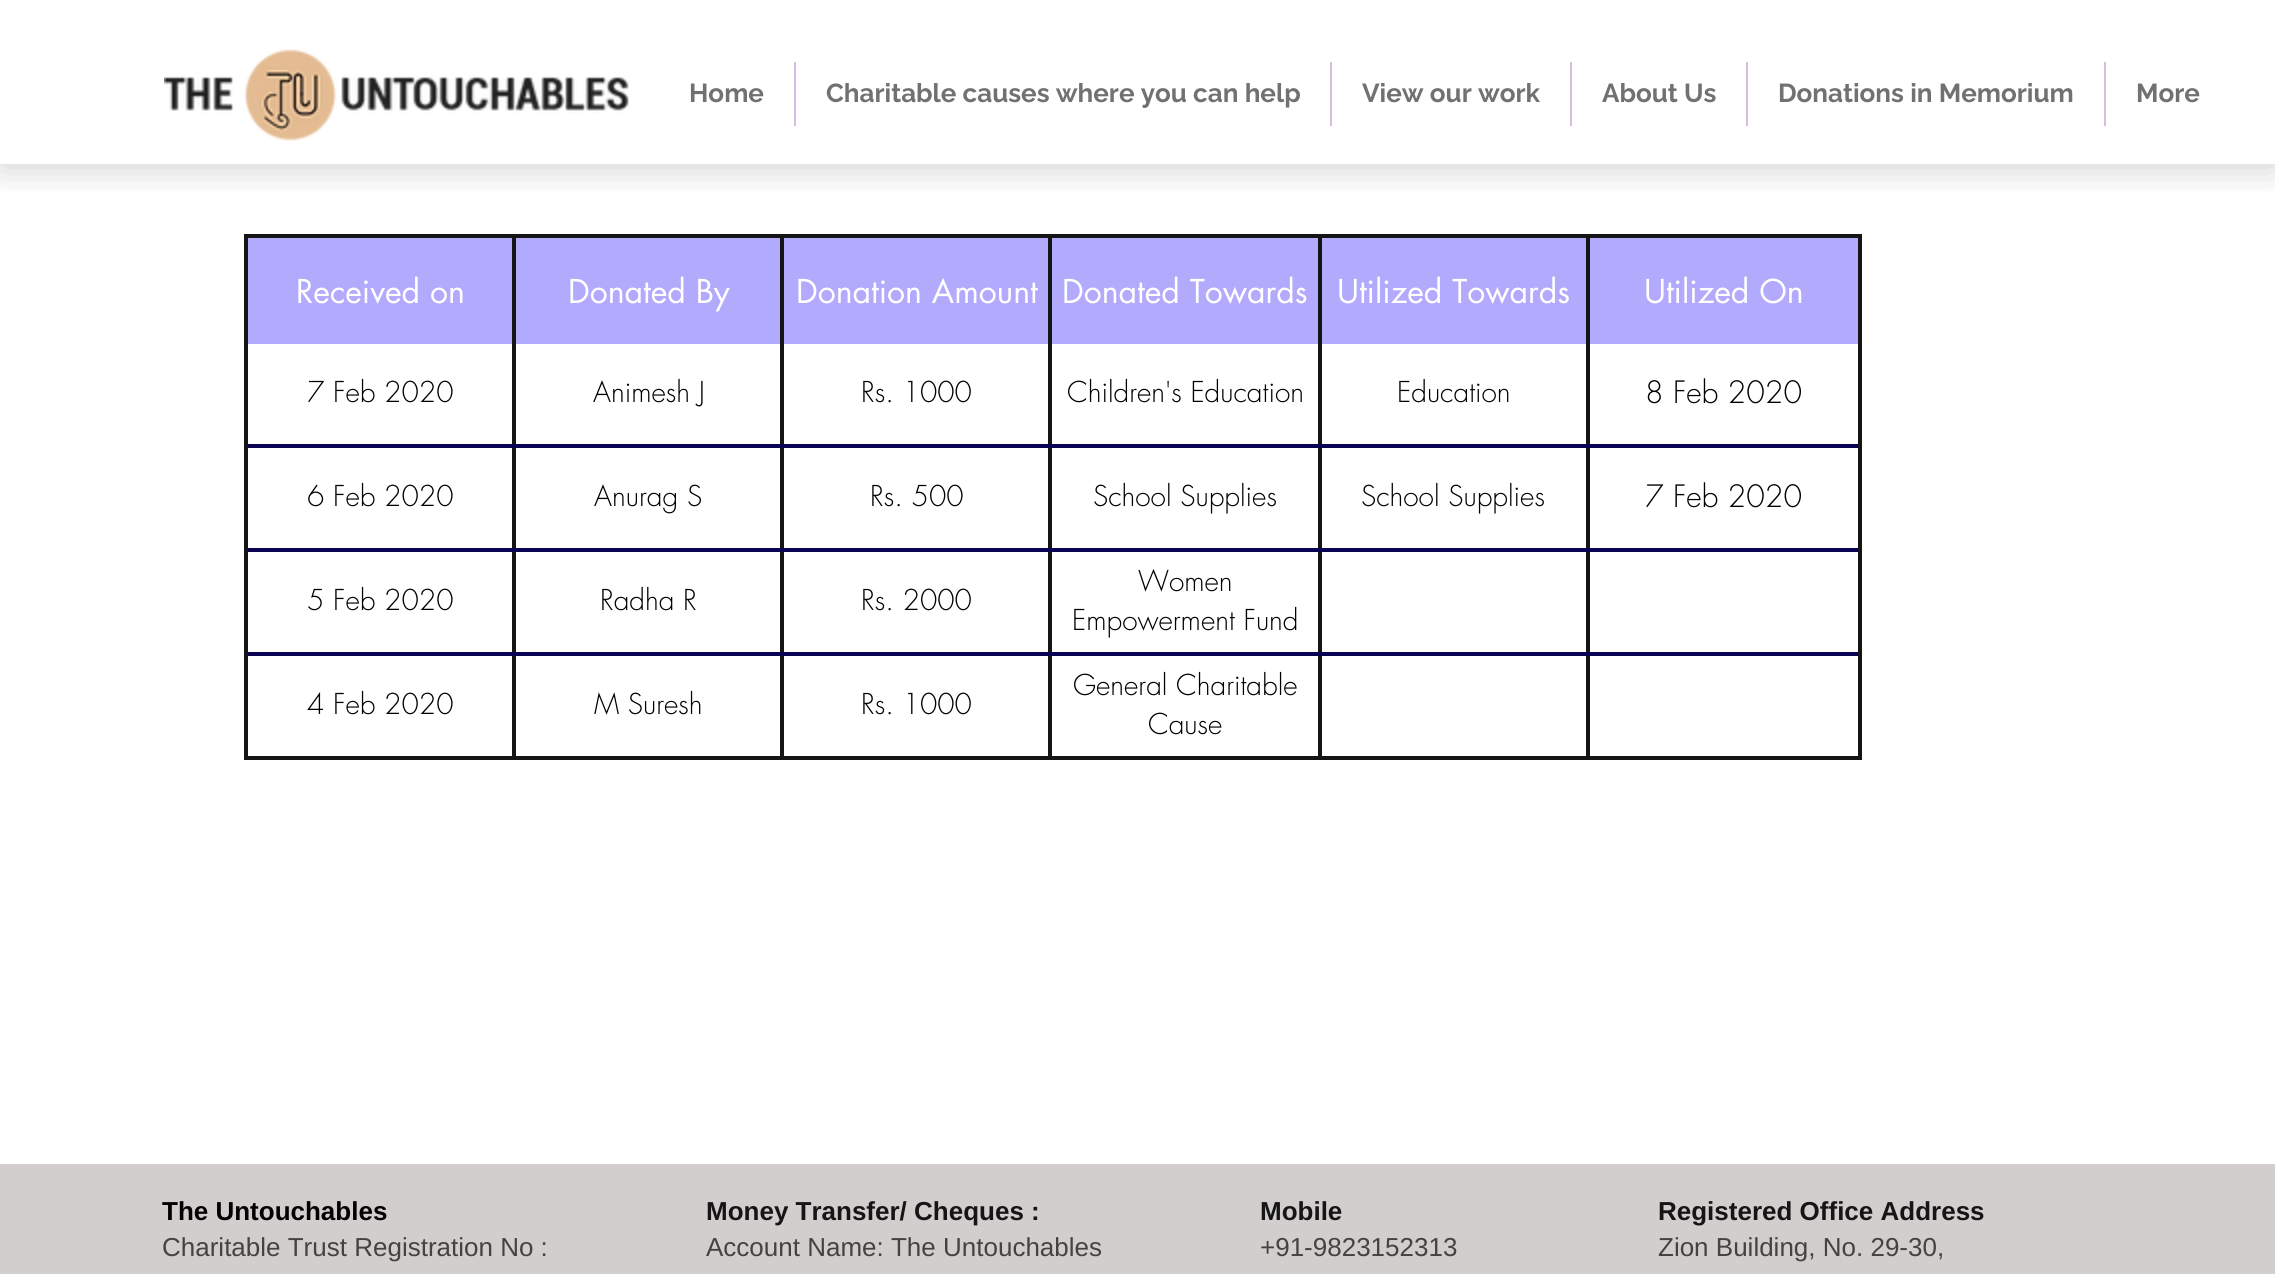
#include <cairo.h>
#include <math.h>
#include <stddef.h>

typedef struct { double x, y; const char *s; } line_t;

static void ink(cairo_t *ctx, unsigned color) {
    cairo_set_source_rgb(ctx, (color >> 16) / 255.0, (color >> 8 & 255) / 255.0, (color & 255) / 255.0);
}

static void round_path(cairo_t *ctx, double x, double y, double w, double h, double r) {
    cairo_new_sub_path(ctx);
    cairo_arc(ctx, x + w - r, y + h - r, r, 0, M_PI / 2);
    cairo_arc(ctx, x + r, y + h - r, r, M_PI / 2, M_PI);
    cairo_arc(ctx, x + r, y + r, r, M_PI, 1.5 * M_PI);
    cairo_arc(ctx, x + w - r, y + r, r, 1.5 * M_PI, 2 * M_PI);
    cairo_close_path(ctx);
}

static void blur_box(cairo_t *ctx, double x, double y, double w, double h, double r, double blur, double alpha) {
    cairo_push_group_with_content(ctx, CAIRO_CONTENT_ALPHA);
    cairo_set_operator(ctx, CAIRO_OPERATOR_SOURCE);
    for (int i = 15; i >= -15 && fmin(w, h) + blur * i / 3 > 0; i -= 2) {
        double e = blur * i / 6;
        cairo_set_source_rgba(ctx, 0, 0, 0, alpha * erfc((i - 1) / 8.5) / 2);
        round_path(ctx, x - e, y - e, w + 2 * e, h + 2 * e, fmax(0, fmin(r + e + blur * .6, fmin(w, h) / 2 + e)));
        cairo_fill(ctx);
    }
    cairo_pattern_t *soft = cairo_pop_group(ctx);
    cairo_mask(ctx, soft);
    cairo_pattern_destroy(soft);
}

static void paste(cairo_t *ctx, const char *path, double x, double y, double w, double h) {
    cairo_surface_t *image = cairo_image_surface_create_from_png(path);
    cairo_save(ctx);
    cairo_set_source_surface(ctx, image, x, y);
    cairo_rectangle(ctx, x, y, w, h);
    cairo_fill(ctx);
    cairo_restore(ctx);
    cairo_surface_destroy(image);
}

int main(void) {
    cairo_surface_t *surface = cairo_image_surface_create(CAIRO_FORMAT_RGB24, 2275, 1274);
    cairo_t *ctx = cairo_create(surface);
    cairo_font_options_t *options = cairo_font_options_create();
    cairo_font_options_set_hint_metrics(options, CAIRO_HINT_METRICS_OFF);
    cairo_font_options_set_hint_style(options, CAIRO_HINT_STYLE_NONE);
    cairo_set_font_options(ctx, options);
    cairo_set_miter_limit(ctx, 4);
    ink(ctx, 0xFFFFFF);
    cairo_paint(ctx);
    cairo_save(ctx);
    cairo_rectangle(ctx, 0, 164, 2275, 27);
    cairo_clip(ctx);
    ink(ctx, 0x000000);
    blur_box(ctx, 0, 2, 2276, 164, 0, 19, 0.21);
    cairo_restore(ctx);
    paste(ctx, "media/1.png", 164, 49, 465, 92);
    cairo_select_font_face(ctx, "Raleway", CAIRO_FONT_SLANT_NORMAL, CAIRO_FONT_WEIGHT_BOLD);
    cairo_set_font_size(ctx, 26);
    ink(ctx, 0x737070);
    cairo_move_to(ctx, 689, 102);
    cairo_show_text(ctx, "Home");
    ink(ctx, 0xD8BDE2);
    cairo_rectangle(ctx, 794, 62, 2, 64);
    cairo_fill(ctx);
    ink(ctx, 0x737070);
    cairo_move_to(ctx, 826, 102);
    cairo_show_text(ctx, "Charitable causes where you can help");
    ink(ctx, 0xD8BDE2);
    cairo_rectangle(ctx, 1330, 62, 2, 64);
    cairo_fill(ctx);
    ink(ctx, 0x737070);
    cairo_move_to(ctx, 1362, 102);
    cairo_show_text(ctx, "View our work");
    ink(ctx, 0xD8BDE2);
    cairo_rectangle(ctx, 1570, 62, 2, 64);
    cairo_fill(ctx);
    ink(ctx, 0x737070);
    cairo_move_to(ctx, 1602, 102);
    cairo_show_text(ctx, "About Us");
    ink(ctx, 0xD8BDE2);
    cairo_rectangle(ctx, 1746, 62, 2, 64);
    cairo_fill(ctx);
    ink(ctx, 0x737070);
    cairo_move_to(ctx, 1778, 102);
    cairo_show_text(ctx, "Donations in Memorium");
    ink(ctx, 0xD8BDE2);
    cairo_rectangle(ctx, 2104, 62, 2, 64);
    cairo_fill(ctx);
    ink(ctx, 0x737070);
    cairo_move_to(ctx, 2136, 102);
    cairo_show_text(ctx, "More");
    cairo_rectangle(ctx, 246, 236, 1614, 522);
    ink(ctx, 0x161515);
    cairo_set_line_width(ctx, 4);
    cairo_stroke(ctx);
    ink(ctx, 0xB2AAFC);
    cairo_rectangle(ctx, 248, 238, 1610, 106);
    cairo_fill(ctx);
    ink(ctx, 0x161515);
    cairo_rectangle(ctx, 512, 238, 4, 206);
    cairo_fill(ctx);
    cairo_select_font_face(ctx, "futura", CAIRO_FONT_SLANT_NORMAL, CAIRO_FONT_WEIGHT_NORMAL);
    cairo_set_font_size(ctx, 32);
    ink(ctx, 0xFFFFFF);
    cairo_move_to(ctx, 296, 303);
    cairo_show_text(ctx, "Received on");
    ink(ctx, 0x161515);
    cairo_rectangle(ctx, 780, 238, 4, 206);
    cairo_fill(ctx);
    ink(ctx, 0xFFFFFF);
    cairo_move_to(ctx, 568, 303);
    cairo_show_text(ctx, "Donated By");
    ink(ctx, 0x161515);
    cairo_rectangle(ctx, 1048, 238, 4, 206);
    cairo_fill(ctx);
    ink(ctx, 0xFFFFFF);
    cairo_move_to(ctx, 796, 303);
    cairo_show_text(ctx, "Donation Amount");
    ink(ctx, 0x161515);
    cairo_rectangle(ctx, 1318, 238, 4, 206);
    cairo_fill(ctx);
    ink(ctx, 0xFFFFFF);
    cairo_move_to(ctx, 1062, 303);
    cairo_show_text(ctx, "Donated Towards");
    ink(ctx, 0x161515);
    cairo_rectangle(ctx, 1586, 238, 4, 206);
    cairo_fill(ctx);
    ink(ctx, 0xFFFFFF);
    cairo_move_to(ctx, 1337, 303);
    cairo_show_text(ctx, "Utilized Towards");
    cairo_move_to(ctx, 1644, 303);
    cairo_show_text(ctx, "Utilized On");
    ink(ctx, 0x0A0252);
    cairo_rectangle(ctx, 248, 444, 1610, 4);
    cairo_fill(ctx);
    cairo_select_font_face(ctx, "futura Light", CAIRO_FONT_SLANT_NORMAL, CAIRO_FONT_WEIGHT_NORMAL);
    cairo_set_font_size(ctx, 28);
    ink(ctx, 0x000000);
    {
        static const line_t items[] = {
            {307, 402, "7 Feb 2020"},
            {593, 402, "Animesh J"},
            {861, 402, "Rs. 1000"},
            {1067, 402, "Children's Education"},
            {1397, 402, "Education"},
        };
        for (size_t i = 0; i < sizeof items / sizeof *items; i++) {
            cairo_move_to(ctx, items[i].x, items[i].y);
            cairo_show_text(ctx, items[i].s);
        }
    }
    cairo_set_font_size(ctx, 30);
    cairo_move_to(ctx, 1645, 403);
    cairo_show_text(ctx, "8 Feb 2020");
    ink(ctx, 0x0A0252);
    cairo_rectangle(ctx, 248, 548, 1610, 4);
    cairo_fill(ctx);
    ink(ctx, 0x161515);
    cairo_rectangle(ctx, 512, 448, 4, 100);
    cairo_fill(ctx);
    cairo_set_font_size(ctx, 28);
    ink(ctx, 0x000000);
    cairo_move_to(ctx, 307, 506);
    cairo_show_text(ctx, "6 Feb 2020");
    ink(ctx, 0x161515);
    cairo_rectangle(ctx, 780, 448, 4, 100);
    cairo_fill(ctx);
    ink(ctx, 0x000000);
    cairo_move_to(ctx, 594, 506);
    cairo_show_text(ctx, "Anurag S");
    ink(ctx, 0x161515);
    cairo_rectangle(ctx, 1048, 448, 4, 100);
    cairo_fill(ctx);
    ink(ctx, 0x000000);
    cairo_move_to(ctx, 870, 506);
    cairo_show_text(ctx, "Rs. 500");
    ink(ctx, 0x161515);
    cairo_rectangle(ctx, 1318, 448, 4, 100);
    cairo_fill(ctx);
    ink(ctx, 0x000000);
    cairo_move_to(ctx, 1093, 506);
    cairo_show_text(ctx, "School Supplies");
    ink(ctx, 0x161515);
    cairo_rectangle(ctx, 1586, 448, 4, 100);
    cairo_fill(ctx);
    ink(ctx, 0x000000);
    cairo_move_to(ctx, 1361, 506);
    cairo_show_text(ctx, "School Supplies");
    cairo_set_font_size(ctx, 30);
    cairo_move_to(ctx, 1645, 507);
    cairo_show_text(ctx, "7 Feb 2020");
    ink(ctx, 0x0A0252);
    cairo_rectangle(ctx, 248, 652, 1610, 4);
    cairo_fill(ctx);
    ink(ctx, 0x161515);
    cairo_rectangle(ctx, 512, 552, 4, 100);
    cairo_fill(ctx);
    cairo_set_font_size(ctx, 28);
    ink(ctx, 0x000000);
    cairo_move_to(ctx, 307, 610);
    cairo_show_text(ctx, "5 Feb 2020");
    ink(ctx, 0x161515);
    cairo_rectangle(ctx, 780, 552, 4, 100);
    cairo_fill(ctx);
    ink(ctx, 0x000000);
    cairo_move_to(ctx, 600, 610);
    cairo_show_text(ctx, "Radha R");
    ink(ctx, 0x161515);
    cairo_rectangle(ctx, 1048, 552, 4, 100);
    cairo_fill(ctx);
    ink(ctx, 0x000000);
    cairo_move_to(ctx, 861, 610);
    cairo_show_text(ctx, "Rs. 2000");
    ink(ctx, 0x161515);
    cairo_rectangle(ctx, 1318, 552, 4, 100);
    cairo_fill(ctx);
    ink(ctx, 0x000000);
    cairo_move_to(ctx, 1138, 591);
    cairo_show_text(ctx, "Women");
    cairo_move_to(ctx, 1072, 630);
    cairo_show_text(ctx, "Empowerment Fund");
    ink(ctx, 0x161515);
    cairo_rectangle(ctx, 1586, 552, 4, 100);
    cairo_fill(ctx);
    cairo_rectangle(ctx, 512, 656, 4, 100);
    cairo_fill(ctx);
    ink(ctx, 0x000000);
    cairo_move_to(ctx, 307, 714);
    cairo_show_text(ctx, "4 Feb 2020");
    ink(ctx, 0x161515);
    cairo_rectangle(ctx, 780, 656, 4, 100);
    cairo_fill(ctx);
    ink(ctx, 0x000000);
    cairo_move_to(ctx, 594, 714);
    cairo_show_text(ctx, "M Suresh");
    ink(ctx, 0x161515);
    cairo_rectangle(ctx, 1048, 656, 4, 100);
    cairo_fill(ctx);
    ink(ctx, 0x000000);
    cairo_move_to(ctx, 861, 714);
    cairo_show_text(ctx, "Rs. 1000");
    ink(ctx, 0x161515);
    cairo_rectangle(ctx, 1318, 656, 4, 100);
    cairo_fill(ctx);
    ink(ctx, 0x000000);
    cairo_move_to(ctx, 1073, 695);
    cairo_show_text(ctx, "General Charitable");
    cairo_move_to(ctx, 1148, 734);
    cairo_show_text(ctx, "Cause");
    ink(ctx, 0x161515);
    cairo_rectangle(ctx, 1586, 656, 4, 100);
    cairo_fill(ctx);
    ink(ctx, 0xD2CECE);
    cairo_rectangle(ctx, 0, 1164, 2275, 110);
    cairo_fill(ctx);
    cairo_select_font_face(ctx, "Liberation Sans", CAIRO_FONT_SLANT_NORMAL, CAIRO_FONT_WEIGHT_BOLD);
    cairo_set_font_size(ctx, 26);
    ink(ctx, 0x000000);
    cairo_move_to(ctx, 162, 1220);
    cairo_show_text(ctx, "The Untouchables");
    cairo_select_font_face(ctx, "Liberation Sans", CAIRO_FONT_SLANT_NORMAL, CAIRO_FONT_WEIGHT_NORMAL);
    ink(ctx, 0x454242);
    cairo_move_to(ctx, 162, 1256);
    cairo_show_text(ctx, "Charitable Trust Registration No :");
    cairo_select_font_face(ctx, "Liberation Sans", CAIRO_FONT_SLANT_NORMAL, CAIRO_FONT_WEIGHT_BOLD);
    ink(ctx, 0x161515);
    cairo_move_to(ctx, 706, 1220);
    cairo_show_text(ctx, "Money Transfer/ Cheques :");
    cairo_select_font_face(ctx, "Liberation Sans", CAIRO_FONT_SLANT_NORMAL, CAIRO_FONT_WEIGHT_NORMAL);
    ink(ctx, 0x454242);
    cairo_move_to(ctx, 706, 1256);
    cairo_show_text(ctx, "Account Name: The Untouchables");
    cairo_select_font_face(ctx, "Liberation Sans", CAIRO_FONT_SLANT_NORMAL, CAIRO_FONT_WEIGHT_BOLD);
    ink(ctx, 0x161515);
    cairo_move_to(ctx, 1260, 1220);
    cairo_show_text(ctx, "Mobile");
    cairo_select_font_face(ctx, "Liberation Sans", CAIRO_FONT_SLANT_NORMAL, CAIRO_FONT_WEIGHT_NORMAL);
    ink(ctx, 0x454242);
    cairo_move_to(ctx, 1260, 1256);
    cairo_show_text(ctx, "+91-9823152313");
    cairo_select_font_face(ctx, "Liberation Sans", CAIRO_FONT_SLANT_NORMAL, CAIRO_FONT_WEIGHT_BOLD);
    ink(ctx, 0x161515);
    cairo_move_to(ctx, 1658, 1220);
    cairo_show_text(ctx, "Registered Office Address");
    cairo_select_font_face(ctx, "Liberation Sans", CAIRO_FONT_SLANT_NORMAL, CAIRO_FONT_WEIGHT_NORMAL);
    ink(ctx, 0x454242);
    cairo_move_to(ctx, 1658, 1256);
    cairo_show_text(ctx, "Zion Building, No. 29-30,");
    cairo_surface_write_to_png(surface, "image.png");
    cairo_font_options_destroy(options);
    cairo_destroy(ctx);
    cairo_surface_destroy(surface);
    return 0;
}
